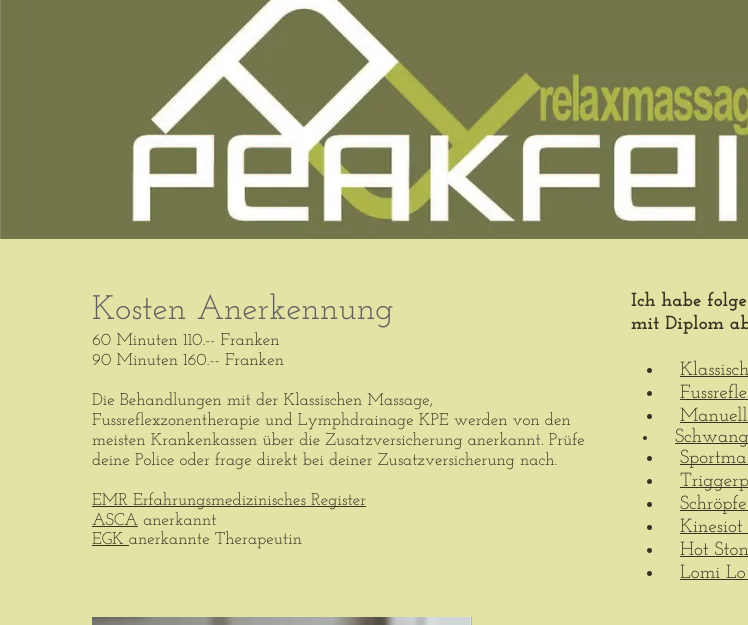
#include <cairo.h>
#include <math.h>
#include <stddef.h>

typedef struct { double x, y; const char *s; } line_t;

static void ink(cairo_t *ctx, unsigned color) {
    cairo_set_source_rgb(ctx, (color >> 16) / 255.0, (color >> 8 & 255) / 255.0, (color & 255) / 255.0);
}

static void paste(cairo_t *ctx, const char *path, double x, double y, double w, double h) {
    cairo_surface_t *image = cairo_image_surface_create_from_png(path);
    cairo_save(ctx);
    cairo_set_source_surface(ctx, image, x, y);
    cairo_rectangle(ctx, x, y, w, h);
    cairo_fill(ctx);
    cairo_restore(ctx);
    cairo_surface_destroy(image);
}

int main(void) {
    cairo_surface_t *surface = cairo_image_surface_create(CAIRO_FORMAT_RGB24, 748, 625);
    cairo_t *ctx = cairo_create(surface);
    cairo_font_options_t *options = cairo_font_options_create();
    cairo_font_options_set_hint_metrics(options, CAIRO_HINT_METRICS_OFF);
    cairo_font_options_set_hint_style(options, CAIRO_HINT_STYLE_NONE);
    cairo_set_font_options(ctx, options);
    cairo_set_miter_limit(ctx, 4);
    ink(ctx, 0xE3E3A6);
    cairo_paint(ctx);
    paste(ctx, "media/1.png", 0, 0, 748, 239);
    cairo_select_font_face(ctx, "Josefin Slab", CAIRO_FONT_SLANT_NORMAL, CAIRO_FONT_WEIGHT_NORMAL);
    cairo_set_font_size(ctx, 34);
    ink(ctx, 0x606060);
    cairo_move_to(ctx, 92, 319);
    cairo_show_text(ctx, "Kosten Anerkennung");
    cairo_set_font_size(ctx, 17);
    ink(ctx, 0x343421);
    {
        static const line_t items[] = {
            {92, 345, "60 Minuten 110.-- Franken"},
            {92, 365, "90 Minuten 160.-- Franken"},
            {92, 405, "Die Behandlungen mit der Klassischen Massage,"},
            {92, 425, "Fussreflexzonentherapie und Lymphdrainage KPE werden von den"},
            {92, 445, "meisten Krankenkassen über die Zusatzversicherung anerkannt. Prüfe"},
            {92, 465, "deine Police oder frage direkt bei deiner Zusatzversicherung nach."},
        };
        for (size_t i = 0; i < sizeof items / sizeof *items; i++) {
            cairo_move_to(ctx, items[i].x, items[i].y);
            cairo_show_text(ctx, items[i].s);
        }
    }
    cairo_rectangle(ctx, 92, 506, 274, 1);
    cairo_fill(ctx);
    cairo_move_to(ctx, 92, 505);
    cairo_show_text(ctx, "EMR Erfahrungsmedizinisches Register");
    cairo_move_to(ctx, 92, 525);
    cairo_show_text(ctx, "ASCA anerkannt");
    cairo_rectangle(ctx, 92, 526, 46, 1);
    cairo_fill(ctx);
    cairo_rectangle(ctx, 92, 545, 37, 1);
    cairo_fill(ctx);
    cairo_move_to(ctx, 92, 544);
    cairo_show_text(ctx, "EGK anerkannte Therapeutin");
    cairo_select_font_face(ctx, "Josefin Slab", CAIRO_FONT_SLANT_NORMAL, CAIRO_FONT_WEIGHT_BOLD);
    cairo_set_font_size(ctx, 19);
    cairo_move_to(ctx, 631, 306);
    cairo_show_text(ctx, "Ich habe folge");
    cairo_move_to(ctx, 631, 329);
    cairo_show_text(ctx, "mit Diplom ab");
    cairo_new_path(ctx);
    cairo_arc(ctx, 649.5, 370.5, 2.5, 0, 2 * M_PI);
    cairo_fill(ctx);
    cairo_select_font_face(ctx, "Josefin Slab", CAIRO_FONT_SLANT_NORMAL, CAIRO_FONT_WEIGHT_NORMAL);
    cairo_move_to(ctx, 680, 375);
    cairo_show_text(ctx, "Klassisch");
    cairo_rectangle(ctx, 680, 376, 68, 1);
    cairo_fill(ctx);
    cairo_arc(ctx, 649.5, 393.5, 2.5, 0, 2 * M_PI);
    cairo_fill(ctx);
    cairo_move_to(ctx, 680, 398);
    cairo_show_text(ctx, "Fussrefle");
    cairo_rectangle(ctx, 680, 399, 68, 1);
    cairo_fill(ctx);
    cairo_arc(ctx, 649.5, 416.5, 2.5, 0, 2 * M_PI);
    cairo_fill(ctx);
    cairo_move_to(ctx, 680, 421);
    cairo_show_text(ctx, "Manuell");
    cairo_rectangle(ctx, 680, 422, 68, 1);
    cairo_fill(ctx);
    cairo_arc(ctx, 645, 438, 2, 0, 2 * M_PI);
    cairo_fill(ctx);
    cairo_rectangle(ctx, 675, 443, 73, 1);
    cairo_fill(ctx);
    cairo_move_to(ctx, 675, 442);
    cairo_show_text(ctx, "Schwang");
    cairo_new_path(ctx);
    cairo_arc(ctx, 649.5, 458.5, 2.5, 0, 2 * M_PI);
    cairo_fill(ctx);
    cairo_rectangle(ctx, 680, 464, 68, 1);
    cairo_fill(ctx);
    cairo_move_to(ctx, 680, 463);
    cairo_show_text(ctx, "Sportma");
    cairo_new_path(ctx);
    cairo_arc(ctx, 649.5, 481.5, 2.5, 0, 2 * M_PI);
    cairo_fill(ctx);
    cairo_rectangle(ctx, 680, 487, 68, 1);
    cairo_fill(ctx);
    cairo_move_to(ctx, 680, 486);
    cairo_show_text(ctx, "Triggerp");
    cairo_new_path(ctx);
    cairo_arc(ctx, 649.5, 504.5, 2.5, 0, 2 * M_PI);
    cairo_fill(ctx);
    cairo_rectangle(ctx, 680, 510, 68, 1);
    cairo_fill(ctx);
    cairo_move_to(ctx, 680, 509);
    cairo_show_text(ctx, "Schröpfe");
    cairo_new_path(ctx);
    cairo_arc(ctx, 649.5, 527.5, 2.5, 0, 2 * M_PI);
    cairo_fill(ctx);
    cairo_move_to(ctx, 680, 532);
    cairo_show_text(ctx, "Kinesiot");
    cairo_rectangle(ctx, 680, 533, 68, 1);
    cairo_fill(ctx);
    cairo_arc(ctx, 649.5, 550.5, 2.5, 0, 2 * M_PI);
    cairo_fill(ctx);
    cairo_move_to(ctx, 680, 555);
    cairo_show_text(ctx, "Hot Ston");
    cairo_rectangle(ctx, 680, 556, 68, 1);
    cairo_fill(ctx);
    cairo_arc(ctx, 649.5, 573.5, 2.5, 0, 2 * M_PI);
    cairo_fill(ctx);
    cairo_move_to(ctx, 680, 578);
    cairo_show_text(ctx, "Lomi Lo");
    cairo_rectangle(ctx, 680, 579, 68, 1);
    cairo_fill(ctx);
    paste(ctx, "media/2.png", 92, 617, 380, 8);
    cairo_surface_write_to_png(surface, "image.png");
    cairo_font_options_destroy(options);
    cairo_destroy(ctx);
    cairo_surface_destroy(surface);
    return 0;
}
